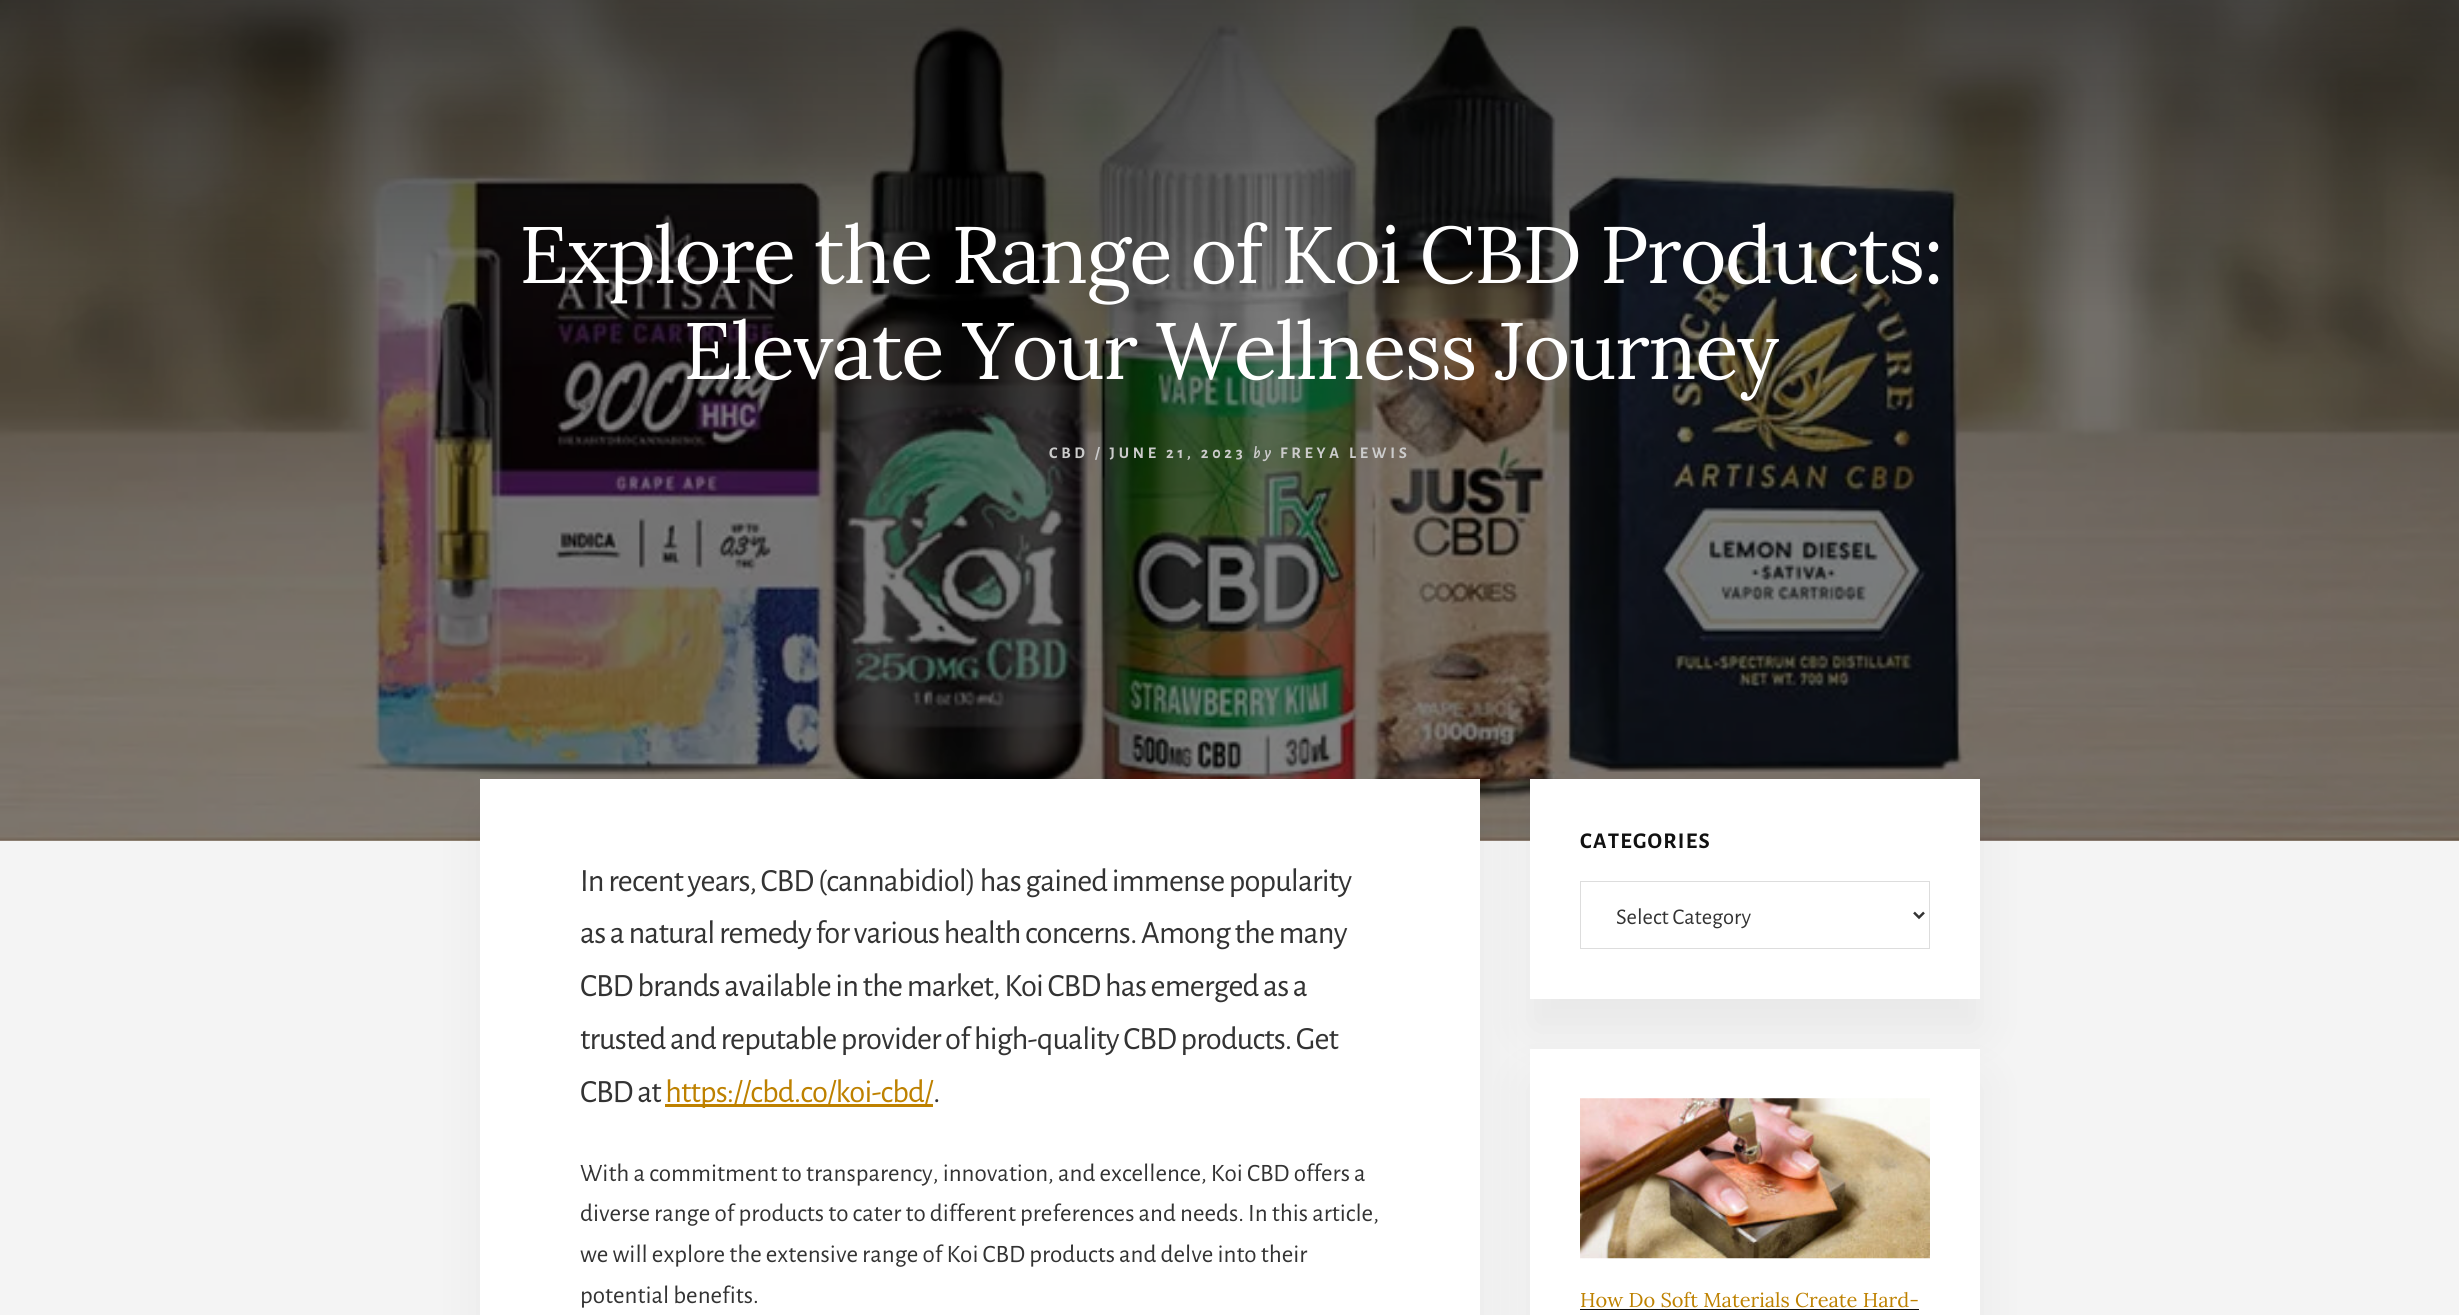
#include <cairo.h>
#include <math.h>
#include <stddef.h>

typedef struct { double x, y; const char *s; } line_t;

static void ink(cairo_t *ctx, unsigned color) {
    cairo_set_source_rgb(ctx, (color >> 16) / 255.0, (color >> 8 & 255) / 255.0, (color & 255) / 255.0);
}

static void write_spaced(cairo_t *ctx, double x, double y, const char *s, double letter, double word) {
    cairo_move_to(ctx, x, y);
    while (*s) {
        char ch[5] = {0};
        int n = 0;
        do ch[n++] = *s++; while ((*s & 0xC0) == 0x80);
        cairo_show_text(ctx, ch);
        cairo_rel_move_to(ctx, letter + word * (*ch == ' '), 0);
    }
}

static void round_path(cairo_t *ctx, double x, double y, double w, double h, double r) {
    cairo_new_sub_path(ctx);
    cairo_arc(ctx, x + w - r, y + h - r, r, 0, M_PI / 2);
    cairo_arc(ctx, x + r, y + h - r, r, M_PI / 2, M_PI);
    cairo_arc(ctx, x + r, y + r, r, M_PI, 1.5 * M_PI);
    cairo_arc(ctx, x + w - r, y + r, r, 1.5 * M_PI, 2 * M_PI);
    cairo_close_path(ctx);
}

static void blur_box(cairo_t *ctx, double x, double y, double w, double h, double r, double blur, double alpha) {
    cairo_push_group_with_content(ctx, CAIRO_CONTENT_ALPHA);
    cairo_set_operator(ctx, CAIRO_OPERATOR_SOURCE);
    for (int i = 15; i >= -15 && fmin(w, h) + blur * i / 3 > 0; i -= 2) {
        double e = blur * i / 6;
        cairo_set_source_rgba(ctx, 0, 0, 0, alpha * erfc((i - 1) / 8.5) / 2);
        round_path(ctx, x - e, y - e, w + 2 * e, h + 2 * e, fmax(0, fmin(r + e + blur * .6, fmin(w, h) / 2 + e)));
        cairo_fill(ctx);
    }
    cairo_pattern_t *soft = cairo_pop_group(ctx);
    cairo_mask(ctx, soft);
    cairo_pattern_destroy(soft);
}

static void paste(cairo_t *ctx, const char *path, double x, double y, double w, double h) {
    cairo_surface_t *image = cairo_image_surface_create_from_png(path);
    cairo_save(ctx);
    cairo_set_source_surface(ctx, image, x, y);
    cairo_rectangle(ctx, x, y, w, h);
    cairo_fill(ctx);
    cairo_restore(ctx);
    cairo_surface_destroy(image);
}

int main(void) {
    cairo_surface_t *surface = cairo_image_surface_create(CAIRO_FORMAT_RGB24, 2459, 1315);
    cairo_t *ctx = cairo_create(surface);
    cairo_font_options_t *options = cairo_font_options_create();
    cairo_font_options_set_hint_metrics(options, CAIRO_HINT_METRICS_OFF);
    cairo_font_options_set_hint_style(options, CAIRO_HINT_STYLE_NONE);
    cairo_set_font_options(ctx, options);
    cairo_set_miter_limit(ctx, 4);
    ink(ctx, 0xF4F4F4);
    cairo_paint(ctx);
    paste(ctx, "media/1.png", 0, 0, 2459, 841);
    cairo_select_font_face(ctx, "Lora", CAIRO_FONT_SLANT_NORMAL, CAIRO_FONT_WEIGHT_NORMAL);
    cairo_set_font_size(ctx, 80);
    ink(ctx, 0xFFFFFF);
    write_spaced(ctx, 519, 283, "Explore the Range of Koi CBD Products:", -1.55, 0);
    write_spaced(ctx, 683, 379, "Elevate Your Wellness Journey", -1.55, 0);
    cairo_select_font_face(ctx, "Alegreya Sans", CAIRO_FONT_SLANT_NORMAL, CAIRO_FONT_WEIGHT_BOLD);
    cairo_set_font_size(ctx, 16.25);
    ink(ctx, 0xCCCCCC);
    write_spaced(ctx, 1049, 458, "CBD / JUNE 21, 2023", 3.75, 0);
    cairo_select_font_face(ctx, "Alegreya Sans", CAIRO_FONT_SLANT_ITALIC, CAIRO_FONT_WEIGHT_BOLD);
    write_spaced(ctx, 1253, 458, "by", 3.75, 0);
    cairo_select_font_face(ctx, "Alegreya Sans", CAIRO_FONT_SLANT_NORMAL, CAIRO_FONT_WEIGHT_BOLD);
    write_spaced(ctx, 1280, 458, "FREYA LEWIS", 3.75, 0);
    ink(ctx, 0x000000);
    blur_box(ctx, 480, 810, 1000, 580, 0, 25, 0.05);
    ink(ctx, 0xFFFFFF);
    cairo_rectangle(ctx, 480, 779, 1000, 536);
    cairo_fill(ctx);
    cairo_select_font_face(ctx, "Alegreya Sans", CAIRO_FONT_SLANT_NORMAL, CAIRO_FONT_WEIGHT_NORMAL);
    cairo_set_font_size(ctx, 32.5);
    ink(ctx, 0x333333);
    {
        static const line_t items[] = {
            {580, 891, "In recent years, CBD (cannabidiol) has gained immense popularity"},
            {580, 943, "as a natural remedy for various health concerns. Among the many"},
            {580, 996, "CBD brands available in the market, Koi CBD has emerged as a"},
            {580, 1049, "trusted and reputable provider of high-quality CBD products. Get"},
            {580, 1102, "CBD at"},
        };
        for (size_t i = 0; i < sizeof items / sizeof *items; i++) {
            write_spaced(ctx, items[i].x, items[i].y, items[i].s, -0.88, 0);
        }
    }
    ink(ctx, 0xBE8100);
    cairo_rectangle(ctx, 665, 1104, 268, 3);
    cairo_fill(ctx);
    write_spaced(ctx, 665, 1102, "https://cbd.co/koi-cbd/", -0.88, 0);
    ink(ctx, 0x333333);
    write_spaced(ctx, 933, 1102, ".", -0.88, 0);
    cairo_set_font_size(ctx, 25);
    {
        static const line_t items[] = {
            {580, 1181, "With a commitment to transparency, innovation, and excellence, Koi CBD offers a"},
            {580, 1221, "diverse range of products to cater to different preferences and needs. In this article,"},
            {580, 1262, "we will explore the extensive range of Koi CBD products and delve into their"},
            {580, 1303, "potential benefits."},
        };
        for (size_t i = 0; i < sizeof items / sizeof *items; i++) {
            cairo_move_to(ctx, items[i].x, items[i].y);
            cairo_show_text(ctx, items[i].s);
        }
    }
    ink(ctx, 0x000000);
    blur_box(ctx, 1530, 810, 450, 220, 0, 25, 0.05);
    ink(ctx, 0xFFFFFF);
    cairo_rectangle(ctx, 1530, 779, 450, 220);
    cairo_fill(ctx);
    cairo_select_font_face(ctx, "Alegreya Sans", CAIRO_FONT_SLANT_NORMAL, CAIRO_FONT_WEIGHT_BOLD);
    cairo_set_font_size(ctx, 22.5);
    ink(ctx, 0x111111);
    write_spaced(ctx, 1580, 848, "CATEGORIES", 1.25, 0);
    cairo_rectangle(ctx, 1580.5, 881.5, 349, 67);
    ink(ctx, 0xDDDDDD);
    cairo_set_line_width(ctx, 1);
    cairo_stroke(ctx);
    cairo_new_path(ctx);
    cairo_move_to(ctx, 1914, 912.5);
    cairo_line_to(ctx, 1919, 917.5);
    cairo_line_to(ctx, 1924, 912.5);
    ink(ctx, 0x333333);
    cairo_set_line_width(ctx, 2.5);
    cairo_stroke(ctx);
    cairo_select_font_face(ctx, "Alegreya Sans", CAIRO_FONT_SLANT_NORMAL, CAIRO_FONT_WEIGHT_NORMAL);
    cairo_move_to(ctx, 1616, 924);
    cairo_show_text(ctx, "Select Category");
    ink(ctx, 0x000000);
    blur_box(ctx, 1530, 1080, 450, 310, 0, 25, 0.05);
    ink(ctx, 0xFFFFFF);
    cairo_rectangle(ctx, 1530, 1049, 450, 266);
    cairo_fill(ctx);
    paste(ctx, "media/2.png", 1580, 1098, 350, 161);
    cairo_select_font_face(ctx, "Lora", CAIRO_FONT_SLANT_NORMAL, CAIRO_FONT_WEIGHT_NORMAL);
    cairo_set_font_size(ctx, 20);
    ink(ctx, 0xBE8100);
    cairo_move_to(ctx, 1580, 1307);
    cairo_show_text(ctx, "How Do Soft Materials Create Hard-");
    ink(ctx, 0x111111);
    cairo_rectangle(ctx, 1580, 1309, 339, 1);
    cairo_fill(ctx);
    cairo_surface_write_to_png(surface, "image.png");
    cairo_font_options_destroy(options);
    cairo_destroy(ctx);
    cairo_surface_destroy(surface);
    return 0;
}
